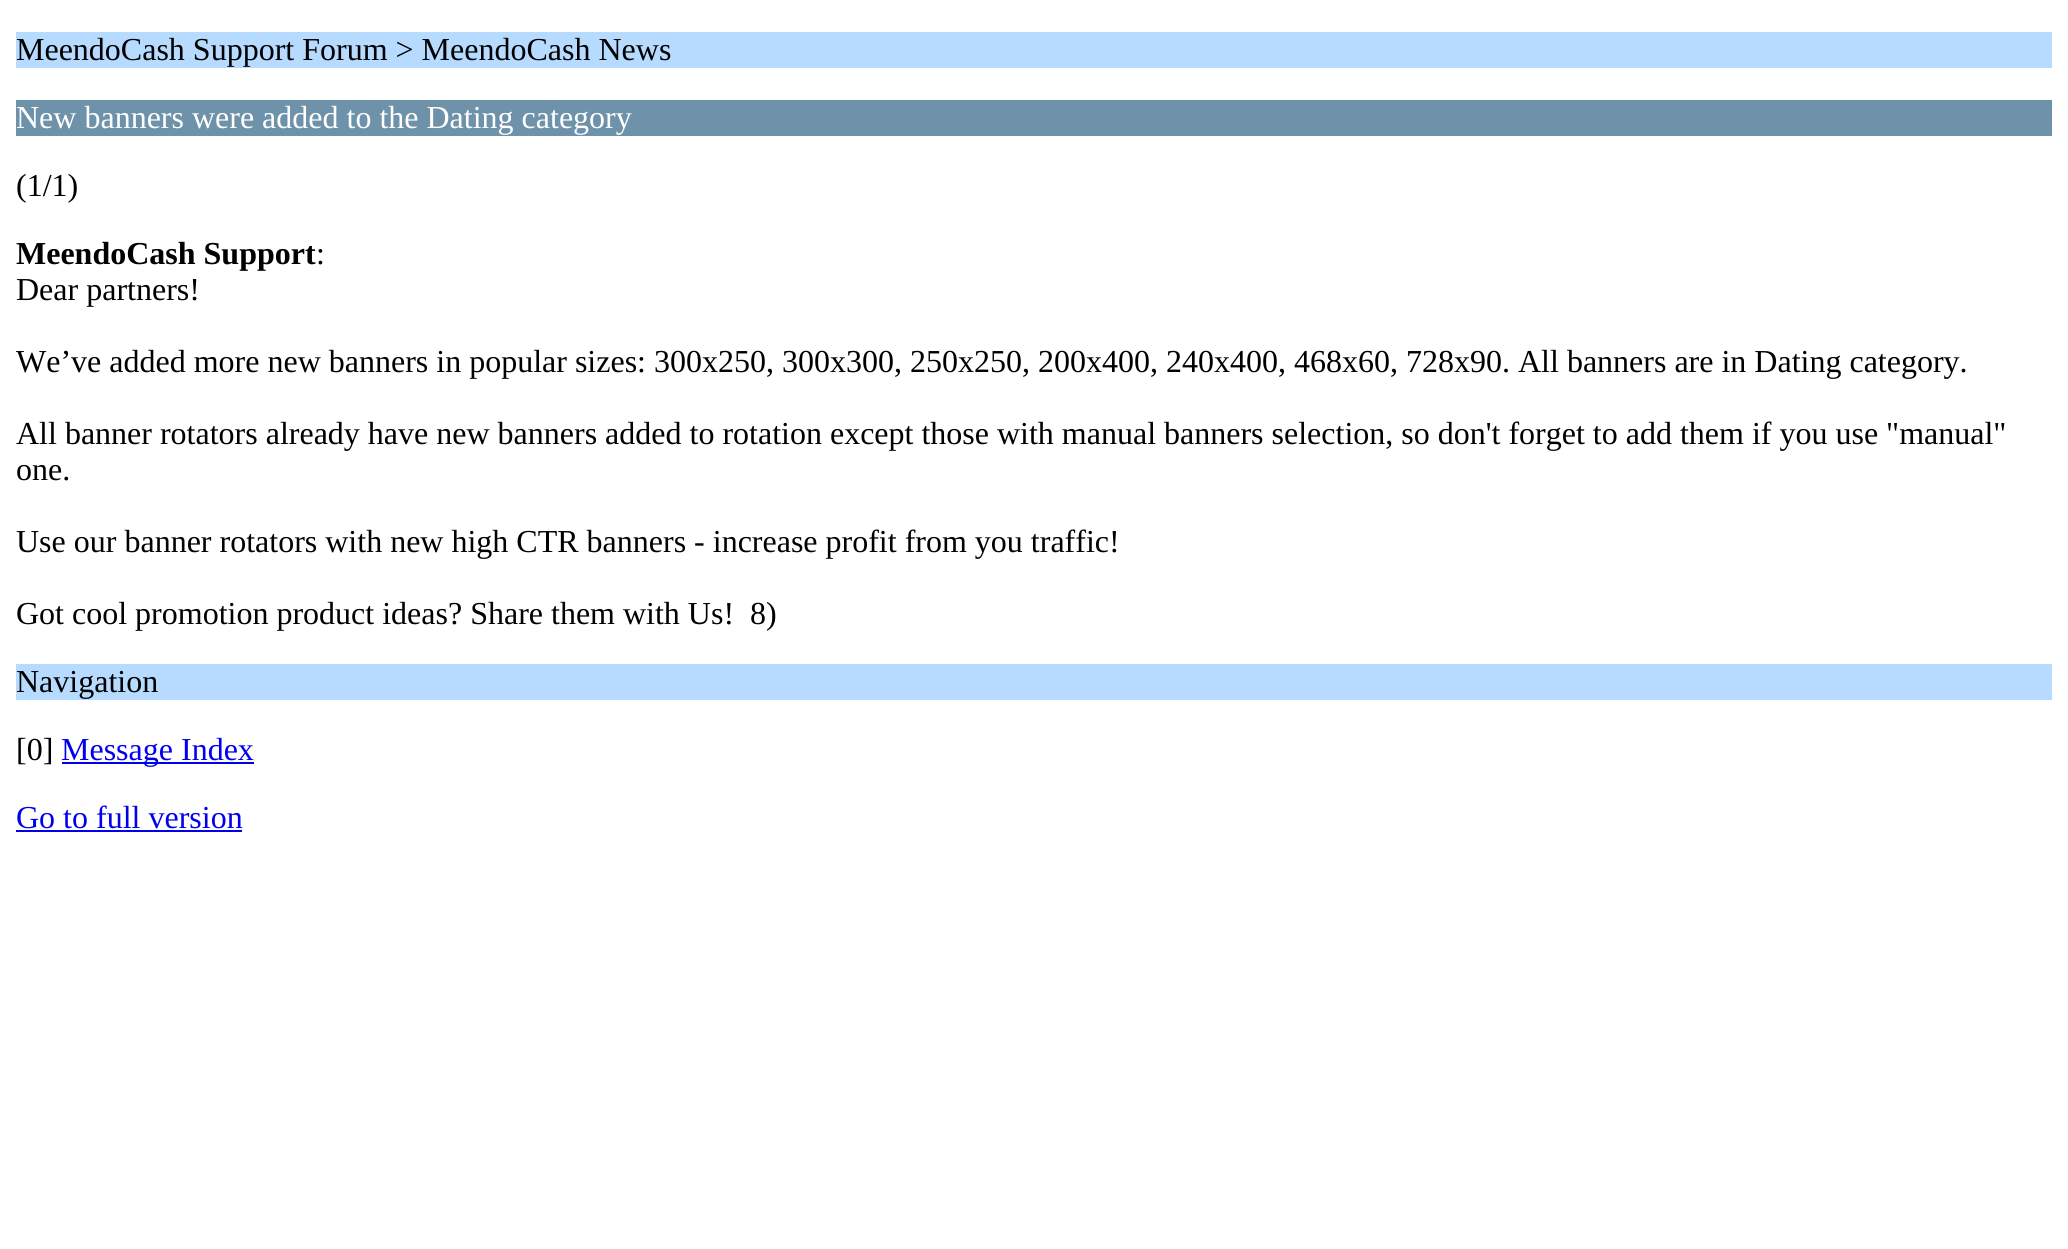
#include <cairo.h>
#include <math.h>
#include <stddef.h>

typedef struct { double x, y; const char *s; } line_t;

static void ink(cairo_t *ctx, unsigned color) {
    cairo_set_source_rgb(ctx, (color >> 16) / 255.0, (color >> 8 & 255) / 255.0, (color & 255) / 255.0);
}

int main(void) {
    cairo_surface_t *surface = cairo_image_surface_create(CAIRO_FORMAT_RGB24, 2068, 1249);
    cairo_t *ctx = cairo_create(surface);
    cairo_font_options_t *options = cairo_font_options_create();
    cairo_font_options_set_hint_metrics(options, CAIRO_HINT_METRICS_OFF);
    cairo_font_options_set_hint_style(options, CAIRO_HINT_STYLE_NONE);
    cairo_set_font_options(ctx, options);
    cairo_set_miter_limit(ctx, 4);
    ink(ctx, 0xFFFFFF);
    cairo_paint(ctx);
    ink(ctx, 0xB6DBFF);
    cairo_rectangle(ctx, 16, 32, 2036, 36);
    cairo_fill(ctx);
    cairo_select_font_face(ctx, "Liberation Serif", CAIRO_FONT_SLANT_NORMAL, CAIRO_FONT_WEIGHT_NORMAL);
    cairo_set_font_size(ctx, 32);
    ink(ctx, 0x000000);
    cairo_move_to(ctx, 16, 60);
    cairo_show_text(ctx, "MeendoCash Support Forum > MeendoCash News");
    ink(ctx, 0x6D92AA);
    cairo_rectangle(ctx, 16, 100, 2036, 36);
    cairo_fill(ctx);
    ink(ctx, 0xFFFFFF);
    cairo_move_to(ctx, 16, 128);
    cairo_show_text(ctx, "New banners were added to the Dating category");
    ink(ctx, 0x000000);
    cairo_move_to(ctx, 16, 196);
    cairo_show_text(ctx, "(1/1)");
    cairo_select_font_face(ctx, "Liberation Serif", CAIRO_FONT_SLANT_NORMAL, CAIRO_FONT_WEIGHT_BOLD);
    cairo_move_to(ctx, 16, 264);
    cairo_show_text(ctx, "MeendoCash Support");
    cairo_select_font_face(ctx, "Liberation Serif", CAIRO_FONT_SLANT_NORMAL, CAIRO_FONT_WEIGHT_NORMAL);
    {
        static const line_t items[] = {
            {316, 264, ":"},
            {16, 300, "Dear partners!"},
            {16, 372, "We’ve added more new banners in popular sizes: 300x250, 300x300, 250x250, 200x400, 240x400, 468x60, 728x90. All banners are in Dating category."},
            {16, 444, "All banner rotators already have new banners added to rotation except those with manual banners selection, so don't forget to add them if you use \"manual\""},
            {16, 480, "one."},
            {16, 552, "Use our banner rotators with new high CTR banners - increase profit from you traffic!"},
            {16, 624, "Got cool promotion product ideas? Share them with Us!  8)"},
        };
        for (size_t i = 0; i < sizeof items / sizeof *items; i++) {
            cairo_move_to(ctx, items[i].x, items[i].y);
            cairo_show_text(ctx, items[i].s);
        }
    }
    ink(ctx, 0xB6DBFF);
    cairo_rectangle(ctx, 16, 664, 2036, 36);
    cairo_fill(ctx);
    ink(ctx, 0x000000);
    cairo_move_to(ctx, 16, 692);
    cairo_show_text(ctx, "Navigation");
    cairo_move_to(ctx, 16, 760);
    cairo_show_text(ctx, "[0]");
    ink(ctx, 0x0000EE);
    cairo_rectangle(ctx, 62, 762, 192, 2);
    cairo_fill(ctx);
    cairo_move_to(ctx, 61, 760);
    cairo_show_text(ctx, "Message Index");
    cairo_move_to(ctx, 16, 828);
    cairo_show_text(ctx, "Go to full version");
    cairo_rectangle(ctx, 16, 830, 226, 2);
    cairo_fill(ctx);
    cairo_surface_write_to_png(surface, "image.png");
    cairo_font_options_destroy(options);
    cairo_destroy(ctx);
    cairo_surface_destroy(surface);
    return 0;
}
